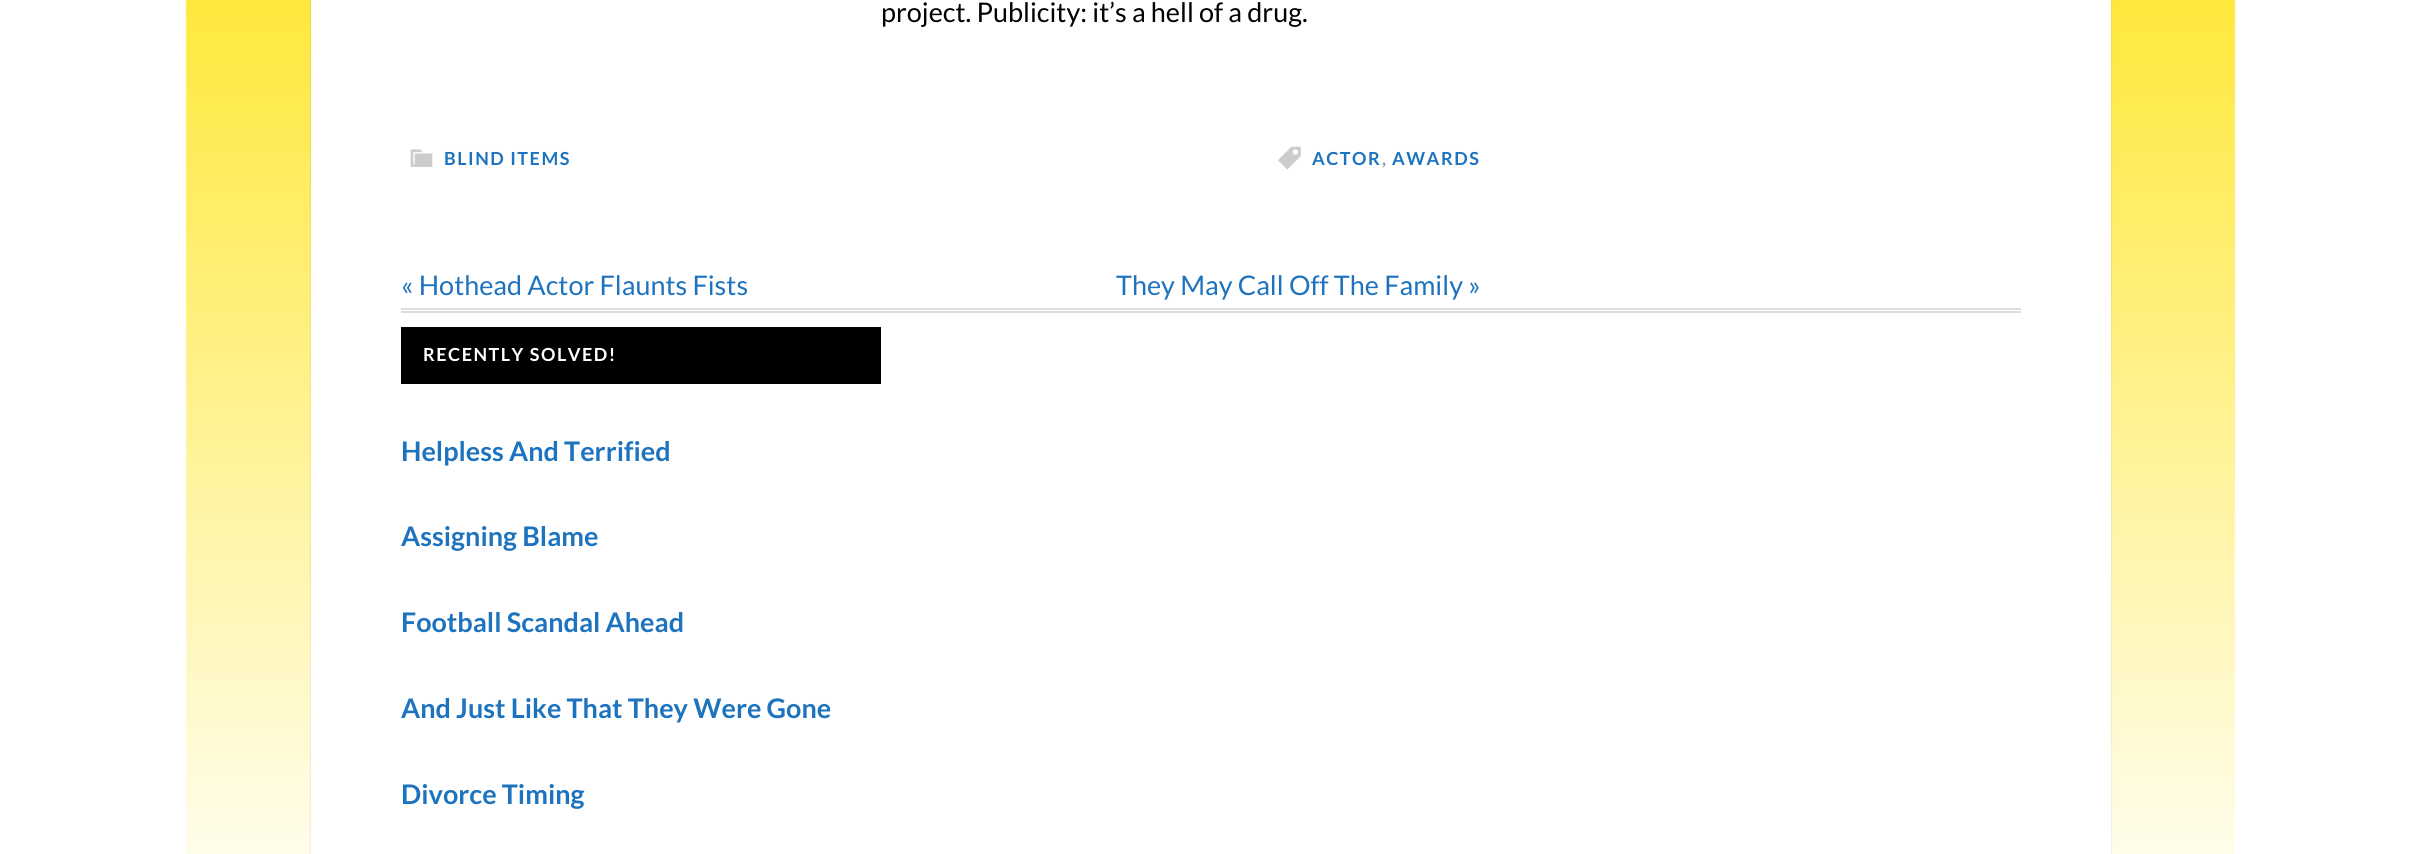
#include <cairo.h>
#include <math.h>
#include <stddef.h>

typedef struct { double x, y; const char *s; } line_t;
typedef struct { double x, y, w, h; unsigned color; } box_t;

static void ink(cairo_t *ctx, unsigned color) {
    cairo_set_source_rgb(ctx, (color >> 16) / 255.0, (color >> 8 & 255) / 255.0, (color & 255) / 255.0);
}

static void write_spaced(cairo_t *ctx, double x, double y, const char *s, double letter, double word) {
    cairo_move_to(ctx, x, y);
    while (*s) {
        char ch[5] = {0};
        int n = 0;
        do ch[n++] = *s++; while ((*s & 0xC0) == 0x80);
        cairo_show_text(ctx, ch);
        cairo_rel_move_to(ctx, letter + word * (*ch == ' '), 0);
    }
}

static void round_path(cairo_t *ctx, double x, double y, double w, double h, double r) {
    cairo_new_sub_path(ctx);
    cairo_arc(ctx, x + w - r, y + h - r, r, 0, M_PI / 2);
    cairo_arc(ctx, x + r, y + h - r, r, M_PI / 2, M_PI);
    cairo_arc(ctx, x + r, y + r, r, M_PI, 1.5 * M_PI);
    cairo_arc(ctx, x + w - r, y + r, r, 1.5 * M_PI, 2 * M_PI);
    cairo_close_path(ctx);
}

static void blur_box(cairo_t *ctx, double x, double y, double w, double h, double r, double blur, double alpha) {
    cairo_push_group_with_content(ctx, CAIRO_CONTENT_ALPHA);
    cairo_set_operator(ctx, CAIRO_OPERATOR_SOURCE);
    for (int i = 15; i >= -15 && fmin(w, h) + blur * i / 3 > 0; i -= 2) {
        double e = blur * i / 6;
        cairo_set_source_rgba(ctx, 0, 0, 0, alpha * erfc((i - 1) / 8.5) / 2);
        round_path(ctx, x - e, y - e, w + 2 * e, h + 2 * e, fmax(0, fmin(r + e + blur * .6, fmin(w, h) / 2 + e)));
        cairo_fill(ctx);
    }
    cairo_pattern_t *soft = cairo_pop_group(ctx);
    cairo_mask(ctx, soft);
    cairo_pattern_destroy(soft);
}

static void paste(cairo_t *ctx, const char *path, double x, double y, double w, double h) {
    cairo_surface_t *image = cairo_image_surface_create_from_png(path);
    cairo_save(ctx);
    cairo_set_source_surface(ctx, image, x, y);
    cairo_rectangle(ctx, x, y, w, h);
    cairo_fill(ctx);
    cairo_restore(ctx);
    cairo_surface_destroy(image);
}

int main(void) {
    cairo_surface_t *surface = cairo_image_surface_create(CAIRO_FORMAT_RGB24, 2420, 854);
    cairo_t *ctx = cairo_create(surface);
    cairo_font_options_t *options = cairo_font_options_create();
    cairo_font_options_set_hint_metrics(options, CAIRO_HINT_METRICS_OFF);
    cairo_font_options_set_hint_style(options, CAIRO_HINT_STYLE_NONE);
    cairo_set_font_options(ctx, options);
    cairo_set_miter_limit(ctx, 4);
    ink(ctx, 0xFFFFFF);
    cairo_paint(ctx);
    paste(ctx, "media/1.png", 185, 0, 2051, 854);
    ink(ctx, 0x000000);
    blur_box(ctx, 311, -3, 1800, 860, 0, 1, 0.15);
    ink(ctx, 0xFFFFFF);
    cairo_rectangle(ctx, 311, 0, 1800, 854);
    cairo_fill(ctx);
    cairo_select_font_face(ctx, "Lato", CAIRO_FONT_SLANT_NORMAL, CAIRO_FONT_WEIGHT_NORMAL);
    cairo_set_font_size(ctx, 27);
    ink(ctx, 0x000000);
    cairo_move_to(ctx, 881, 22);
    cairo_show_text(ctx, "project. Publicity: it’s a hell of a drug.");
    paste(ctx, "media/2.png", 410, 149, 23, 18);
    cairo_select_font_face(ctx, "Lato", CAIRO_FONT_SLANT_NORMAL, CAIRO_FONT_WEIGHT_BOLD);
    cairo_set_font_size(ctx, 18);
    ink(ctx, 0x1E73BE);
    write_spaced(ctx, 444, 165, "BLIND ITEMS", 1.5, 0);
    paste(ctx, "media/3.png", 1278, 146, 23, 24);
    write_spaced(ctx, 1312, 165, "ACTOR", 1.5, 0);
    ink(ctx, 0x999999);
    write_spaced(ctx, 1382, 165, ",", 1.5, 0);
    ink(ctx, 0x1E73BE);
    write_spaced(ctx, 1392, 165, "AWARDS", 1.5, 0);
    cairo_select_font_face(ctx, "Lato", CAIRO_FONT_SLANT_NORMAL, CAIRO_FONT_WEIGHT_NORMAL);
    cairo_set_font_size(ctx, 27);
    cairo_move_to(ctx, 401, 295);
    cairo_show_text(ctx, "« Hothead Actor Flaunts Fists");
    cairo_move_to(ctx, 1116, 295);
    cairo_show_text(ctx, "They May Call Off The Family »");
    {
        static const box_t items[] = {
            {401, 308, 1620, 2, 0xDDDDDD},
            {401, 311, 1620, 2, 0xDDDDDD},
            {401, 327, 480, 57, 0x000000},
        };
        for (size_t i = 0; i < sizeof items / sizeof *items; i++) {
            ink(ctx, items[i].color);
            cairo_rectangle(ctx, items[i].x, items[i].y, items[i].w, items[i].h);
            cairo_fill(ctx);
        }
    }
    cairo_select_font_face(ctx, "Lato", CAIRO_FONT_SLANT_NORMAL, CAIRO_FONT_WEIGHT_BOLD);
    cairo_set_font_size(ctx, 18);
    ink(ctx, 0xFFFFFF);
    write_spaced(ctx, 423, 361, "RECENTLY SOLVED!", 1.5, 0);
    cairo_set_font_size(ctx, 27);
    ink(ctx, 0x1E73BE);
    {
        static const line_t items[] = {
            {401, 461, "Helpless And Terrified"},
            {401, 546, "Assigning Blame"},
            {401, 632, "Football Scandal Ahead"},
            {401, 718, "And Just Like That They Were Gone"},
            {401, 804, "Divorce Timing"},
        };
        for (size_t i = 0; i < sizeof items / sizeof *items; i++) {
            cairo_move_to(ctx, items[i].x, items[i].y);
            cairo_show_text(ctx, items[i].s);
        }
    }
    cairo_surface_write_to_png(surface, "image.png");
    cairo_font_options_destroy(options);
    cairo_destroy(ctx);
    cairo_surface_destroy(surface);
    return 0;
}
